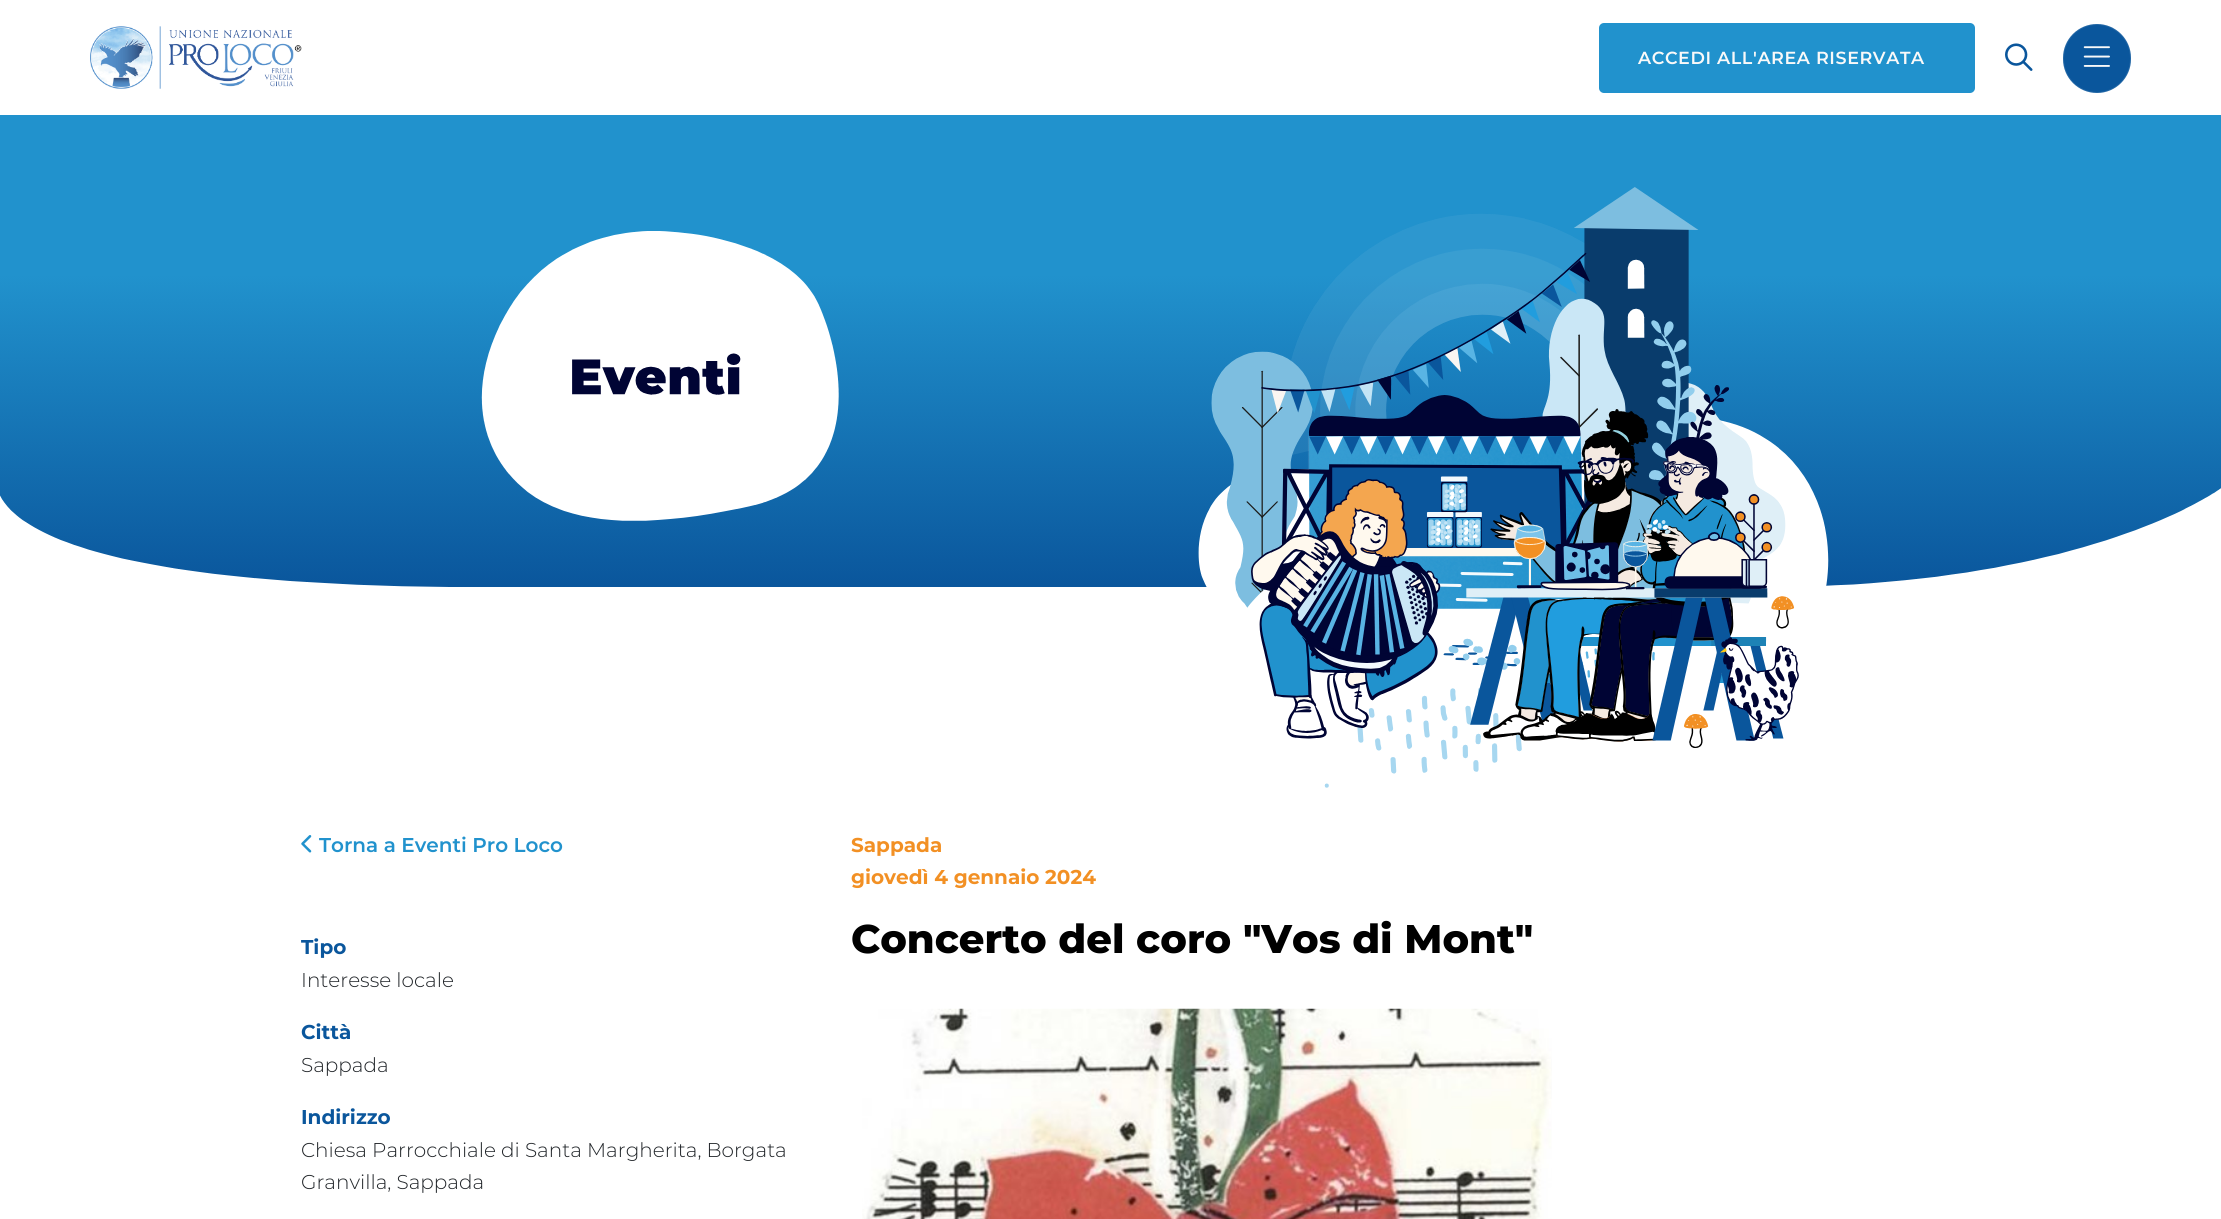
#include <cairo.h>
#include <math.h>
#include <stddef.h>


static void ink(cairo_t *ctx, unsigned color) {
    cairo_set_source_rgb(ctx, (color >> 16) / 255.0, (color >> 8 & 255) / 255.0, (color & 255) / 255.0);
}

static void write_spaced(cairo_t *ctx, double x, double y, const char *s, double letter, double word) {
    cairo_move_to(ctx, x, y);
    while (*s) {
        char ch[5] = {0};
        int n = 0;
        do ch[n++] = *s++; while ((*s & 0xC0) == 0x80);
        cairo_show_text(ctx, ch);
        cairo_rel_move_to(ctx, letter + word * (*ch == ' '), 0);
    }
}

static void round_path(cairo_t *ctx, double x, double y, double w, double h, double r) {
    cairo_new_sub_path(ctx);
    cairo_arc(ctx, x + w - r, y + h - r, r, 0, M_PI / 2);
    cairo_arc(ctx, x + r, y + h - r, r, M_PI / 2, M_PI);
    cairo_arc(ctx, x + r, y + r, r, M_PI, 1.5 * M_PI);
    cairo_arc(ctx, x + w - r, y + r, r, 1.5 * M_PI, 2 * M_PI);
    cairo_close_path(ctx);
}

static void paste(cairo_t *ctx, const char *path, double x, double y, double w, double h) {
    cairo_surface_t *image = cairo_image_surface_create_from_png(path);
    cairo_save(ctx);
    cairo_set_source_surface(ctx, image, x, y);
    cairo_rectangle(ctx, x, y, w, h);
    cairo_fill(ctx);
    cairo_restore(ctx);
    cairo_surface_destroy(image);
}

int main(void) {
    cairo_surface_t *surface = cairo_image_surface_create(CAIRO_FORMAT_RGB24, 2221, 1219);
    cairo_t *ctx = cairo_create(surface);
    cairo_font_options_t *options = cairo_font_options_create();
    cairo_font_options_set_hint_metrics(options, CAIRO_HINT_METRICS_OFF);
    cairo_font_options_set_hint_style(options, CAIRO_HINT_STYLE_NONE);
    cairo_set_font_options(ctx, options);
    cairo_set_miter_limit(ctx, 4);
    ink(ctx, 0xFFFFFF);
    cairo_paint(ctx);
    paste(ctx, "media/1.png", 90, 26, 212, 63);
    ink(ctx, 0x2192CD);
    round_path(ctx, 1599, 23, 376, 70, 5);
    cairo_fill(ctx);
    cairo_select_font_face(ctx, "Montserrat SemiBold", CAIRO_FONT_SLANT_NORMAL, CAIRO_FONT_WEIGHT_NORMAL);
    cairo_set_font_size(ctx, 17.5);
    ink(ctx, 0xF9F9F9);
    write_spaced(ctx, 1638, 64, "ACCEDI ALL'AREA RISERVATA", 0.6, 0);
    paste(ctx, "media/2.png", 2005, 43, 28, 28);
    ink(ctx, 0x0A569C);
    round_path(ctx, 2063, 24, 68, 69, 34);
    cairo_fill(ctx);
    round_path(ctx, 2063.5, 24.5, 67, 68, 33.5);
    cairo_set_source_rgba(ctx, 1, 1, 1, 0.1);
    cairo_set_line_width(ctx, 1);
    cairo_stroke(ctx);
    paste(ctx, "media/3.png", 2083, 46, 27, 21);
    paste(ctx, "media/4.png", 0, 115, 2221, 673);
    paste(ctx, "media/5.png", 301, 835, 11, 18);
    cairo_set_font_size(ctx, 20);
    ink(ctx, 0x2192CD);
    cairo_move_to(ctx, 319, 852);
    cairo_show_text(ctx, "Torna a Eventi Pro Loco");
    cairo_select_font_face(ctx, "Montserrat", CAIRO_FONT_SLANT_NORMAL, CAIRO_FONT_WEIGHT_BOLD);
    ink(ctx, 0x0A569C);
    cairo_move_to(ctx, 301, 954);
    cairo_show_text(ctx, "Tipo");
    cairo_select_font_face(ctx, "Montserrat Light", CAIRO_FONT_SLANT_NORMAL, CAIRO_FONT_WEIGHT_NORMAL);
    ink(ctx, 0x212529);
    cairo_move_to(ctx, 301, 987);
    cairo_show_text(ctx, "Interesse locale");
    cairo_select_font_face(ctx, "Montserrat", CAIRO_FONT_SLANT_NORMAL, CAIRO_FONT_WEIGHT_BOLD);
    ink(ctx, 0x0A569C);
    cairo_move_to(ctx, 301, 1039);
    cairo_show_text(ctx, "Città");
    cairo_select_font_face(ctx, "Montserrat Light", CAIRO_FONT_SLANT_NORMAL, CAIRO_FONT_WEIGHT_NORMAL);
    ink(ctx, 0x212529);
    cairo_move_to(ctx, 301, 1072);
    cairo_show_text(ctx, "Sappada");
    cairo_select_font_face(ctx, "Montserrat", CAIRO_FONT_SLANT_NORMAL, CAIRO_FONT_WEIGHT_BOLD);
    ink(ctx, 0x0A569C);
    cairo_move_to(ctx, 301, 1124);
    cairo_show_text(ctx, "Indirizzo");
    cairo_select_font_face(ctx, "Montserrat Light", CAIRO_FONT_SLANT_NORMAL, CAIRO_FONT_WEIGHT_NORMAL);
    ink(ctx, 0x212529);
    cairo_move_to(ctx, 301, 1157);
    cairo_show_text(ctx, "Chiesa Parrocchiale di Santa Margherita, Borgata");
    cairo_move_to(ctx, 301, 1189);
    cairo_show_text(ctx, "Granvilla, Sappada");
    cairo_select_font_face(ctx, "Montserrat", CAIRO_FONT_SLANT_NORMAL, CAIRO_FONT_WEIGHT_BOLD);
    ink(ctx, 0xF29024);
    cairo_move_to(ctx, 851, 852);
    cairo_show_text(ctx, "Sappada");
    cairo_move_to(ctx, 851, 884);
    cairo_show_text(ctx, "giovedì 4 gennaio 2024");
    cairo_select_font_face(ctx, "Montserrat ExtraBold", CAIRO_FONT_SLANT_NORMAL, CAIRO_FONT_WEIGHT_NORMAL);
    cairo_set_font_size(ctx, 40);
    ink(ctx, 0x000000);
    cairo_move_to(ctx, 851, 953);
    cairo_show_text(ctx, "Concerto del coro \"Vos di Mont\"");
    paste(ctx, "media/6.png", 862, 1008, 690, 211);
    cairo_surface_write_to_png(surface, "image.png");
    cairo_font_options_destroy(options);
    cairo_destroy(ctx);
    cairo_surface_destroy(surface);
    return 0;
}
